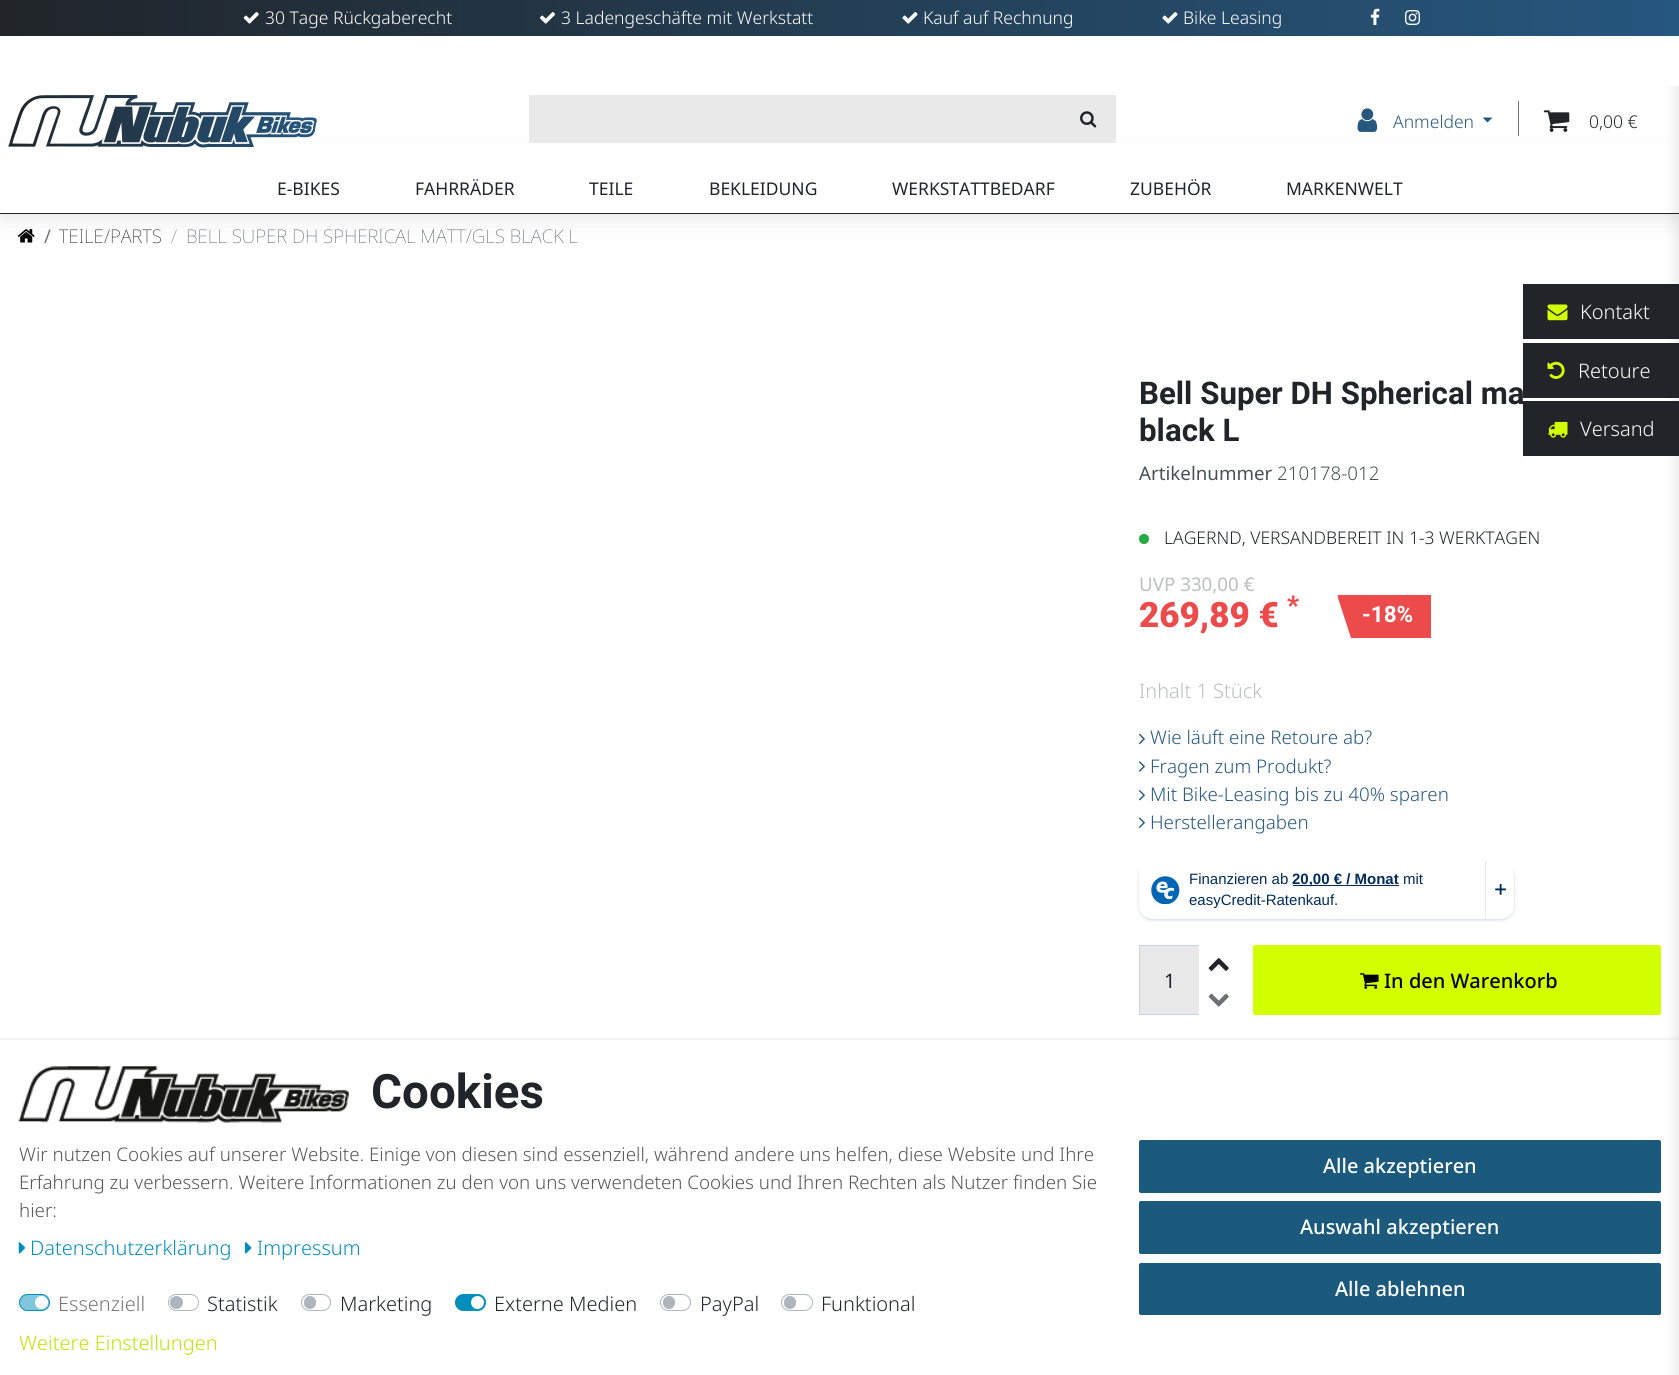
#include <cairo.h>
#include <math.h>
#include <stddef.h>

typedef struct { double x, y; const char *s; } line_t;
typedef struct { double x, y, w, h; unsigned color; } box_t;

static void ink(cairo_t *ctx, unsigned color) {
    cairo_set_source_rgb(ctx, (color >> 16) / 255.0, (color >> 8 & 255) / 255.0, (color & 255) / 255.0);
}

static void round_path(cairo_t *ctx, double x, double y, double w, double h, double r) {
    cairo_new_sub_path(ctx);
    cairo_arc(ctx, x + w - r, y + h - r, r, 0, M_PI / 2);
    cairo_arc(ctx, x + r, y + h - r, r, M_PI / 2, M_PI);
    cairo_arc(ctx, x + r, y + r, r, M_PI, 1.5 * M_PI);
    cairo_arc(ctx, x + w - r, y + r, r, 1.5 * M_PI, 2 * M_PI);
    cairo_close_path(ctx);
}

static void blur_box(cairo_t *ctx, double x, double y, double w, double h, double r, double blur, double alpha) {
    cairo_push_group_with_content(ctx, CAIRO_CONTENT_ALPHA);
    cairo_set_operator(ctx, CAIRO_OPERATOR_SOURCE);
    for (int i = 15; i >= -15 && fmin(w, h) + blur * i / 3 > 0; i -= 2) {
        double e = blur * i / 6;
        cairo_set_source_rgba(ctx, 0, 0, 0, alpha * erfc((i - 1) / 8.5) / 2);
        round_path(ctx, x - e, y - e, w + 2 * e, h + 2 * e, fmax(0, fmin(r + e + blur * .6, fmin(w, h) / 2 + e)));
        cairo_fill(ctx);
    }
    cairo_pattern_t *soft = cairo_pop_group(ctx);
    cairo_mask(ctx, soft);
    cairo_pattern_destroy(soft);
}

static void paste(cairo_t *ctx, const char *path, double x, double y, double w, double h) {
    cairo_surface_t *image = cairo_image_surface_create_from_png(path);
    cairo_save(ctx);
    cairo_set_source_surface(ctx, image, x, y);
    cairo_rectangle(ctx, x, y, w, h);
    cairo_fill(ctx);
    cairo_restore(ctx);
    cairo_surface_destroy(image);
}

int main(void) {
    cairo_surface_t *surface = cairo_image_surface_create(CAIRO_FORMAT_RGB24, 1679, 1375);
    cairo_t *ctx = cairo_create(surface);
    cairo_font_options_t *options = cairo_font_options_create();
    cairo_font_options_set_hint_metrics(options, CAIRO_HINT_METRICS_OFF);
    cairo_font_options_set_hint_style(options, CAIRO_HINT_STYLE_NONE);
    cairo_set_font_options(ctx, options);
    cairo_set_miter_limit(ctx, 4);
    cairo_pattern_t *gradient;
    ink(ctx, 0xFFFFFF);
    cairo_paint(ctx);
    paste(ctx, "media/11.png", 17, 229, 18, 14);
    ink(ctx, 0x000000);
    blur_box(ctx, 0, 160, 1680, 58, 0, 12.5, 0.1);
    ink(ctx, 0xFFFFFF);
    cairo_rectangle(ctx, 0, 144, 1679, 69);
    cairo_fill(ctx);
    ink(ctx, 0x212529);
    cairo_rectangle(ctx, 0, 213, 1679, 1);
    cairo_fill(ctx);
    ink(ctx, 0xD1FF00);
    round_path(ctx, 1253, 945, 408, 70, 2);
    cairo_fill(ctx);
    ink(ctx, 0x000000);
    blur_box(ctx, 0, 1041, 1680, 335, 0, 3, 0.15);
    ink(ctx, 0xFFFFFF);
    cairo_rectangle(ctx, 0, 1040, 1679, 335);
    cairo_fill(ctx);
    ink(ctx, 0x1B5A7D);
    round_path(ctx, 1139.5, 1140.5, 521, 52, 1.5);
    cairo_fill_preserve(ctx);
    cairo_set_line_width(ctx, 1);
    cairo_stroke(ctx);
    round_path(ctx, 1139.5, 1201.5, 521, 52, 1.5);
    cairo_fill_preserve(ctx);
    cairo_stroke(ctx);
    round_path(ctx, 1139.5, 1263.5, 521, 51, 1.5);
    cairo_fill_preserve(ctx);
    cairo_stroke(ctx);
    ink(ctx, 0x000000);
    blur_box(ctx, 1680, 9, 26, 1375, 0, 9, 0.15);
    gradient = cairo_pattern_create_linear(0, 18, 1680, 18);
    cairo_pattern_add_color_stop_rgba(gradient, 0, 0.129, 0.145, 0.161, 1);
    cairo_pattern_add_color_stop_rgba(gradient, 1, 0.149, 0.341, 0.498, 1);
    cairo_set_source(ctx, gradient);
    cairo_pattern_destroy(gradient);
    cairo_rectangle(ctx, 0, 0, 1679, 36);
    cairo_fill(ctx);
    paste(ctx, "media/1.png", 243, 12, 16, 12);
    cairo_select_font_face(ctx, "Noto Sans Light", CAIRO_FONT_SLANT_NORMAL, CAIRO_FONT_WEIGHT_NORMAL);
    cairo_set_font_size(ctx, 17.5);
    ink(ctx, 0xFFFFFF);
    cairo_move_to(ctx, 265, 24);
    cairo_show_text(ctx, "30 Tage Rückgaberecht");
    paste(ctx, "media/2.png", 540, 12, 15, 12);
    cairo_move_to(ctx, 561, 24);
    cairo_show_text(ctx, "3 Ladengeschäfte mit Werkstatt");
    paste(ctx, "media/3.png", 902, 12, 16, 12);
    cairo_move_to(ctx, 923, 24);
    cairo_show_text(ctx, "Kauf auf Rechnung");
    paste(ctx, "media/4.png", 1162, 12, 16, 12);
    cairo_move_to(ctx, 1183, 24);
    cairo_show_text(ctx, "Bike Leasing");
    paste(ctx, "media/5.png", 1370, 8, 10, 17);
    paste(ctx, "media/6.png", 1405, 10, 15, 15);
    cairo_rectangle(ctx, 1667, 36, 12, 50);
    cairo_fill(ctx);
    paste(ctx, "media/7.png", 8, 95, 309, 53);
    ink(ctx, 0xE9E9EA);
    cairo_rectangle(ctx, 529, 95, 587, 48);
    cairo_fill(ctx);
    paste(ctx, "media/8.png", 1080, 111, 17, 17);
    ink(ctx, 0x6C757D);
    cairo_rectangle(ctx, 1518, 101, 1, 35);
    cairo_fill(ctx);
    paste(ctx, "media/9.png", 1357, 108, 21, 24);
    ink(ctx, 0x26577F);
    cairo_move_to(ctx, 1393, 128);
    cairo_show_text(ctx, "Anmelden");
    cairo_new_path(ctx);
    cairo_move_to(ctx, 1482.5, 117.5);
    cairo_line_to(ctx, 1492.5, 117.5);
    cairo_line_to(ctx, 1487.5, 122.5);
    cairo_close_path(ctx);
    cairo_fill(ctx);
    paste(ctx, "media/10.png", 1543, 110, 27, 22);
    ink(ctx, 0x212529);
    cairo_move_to(ctx, 1589, 128);
    cairo_show_text(ctx, "0,00 €");
    cairo_select_font_face(ctx, "Noto Sans", CAIRO_FONT_SLANT_NORMAL, CAIRO_FONT_WEIGHT_NORMAL);
    {
        static const line_t items[] = {
            {277, 195, "E-BIKES"},
            {415, 195, "FAHRRÄDER"},
            {589, 195, "TEILE"},
            {709, 195, "BEKLEIDUNG"},
            {892, 195, "WERKSTATTBEDARF"},
            {1130, 195, "ZUBEHÖR"},
            {1286, 195, "MARKENWELT"},
        };
        for (size_t i = 0; i < sizeof items / sizeof *items; i++) {
            cairo_move_to(ctx, items[i].x, items[i].y);
            cairo_show_text(ctx, items[i].s);
        }
    }
    cairo_set_font_size(ctx, 18.75);
    ink(ctx, 0x6C757D);
    cairo_move_to(ctx, 44, 243);
    cairo_show_text(ctx, "/");
    cairo_select_font_face(ctx, "Noto Sans Thin", CAIRO_FONT_SLANT_NORMAL, CAIRO_FONT_WEIGHT_NORMAL);
    ink(ctx, 0x000000);
    cairo_move_to(ctx, 59, 243);
    cairo_show_text(ctx, "TEILE/PARTS");
    ink(ctx, 0x6C757D);
    cairo_move_to(ctx, 171, 243);
    cairo_show_text(ctx, "/");
    ink(ctx, 0x495057);
    cairo_move_to(ctx, 186, 243);
    cairo_show_text(ctx, "BELL SUPER DH SPHERICAL MATT/GLS BLACK L");
    cairo_select_font_face(ctx, "Roboto", CAIRO_FONT_SLANT_NORMAL, CAIRO_FONT_WEIGHT_BOLD);
    cairo_set_font_size(ctx, 31.25);
    ink(ctx, 0x212529);
    cairo_move_to(ctx, 1139, 404);
    cairo_show_text(ctx, "Bell Super DH Spherical ma");
    cairo_move_to(ctx, 1139, 441);
    cairo_show_text(ctx, "black L");
    cairo_select_font_face(ctx, "Noto Sans", CAIRO_FONT_SLANT_NORMAL, CAIRO_FONT_WEIGHT_NORMAL);
    cairo_set_font_size(ctx, 18.75);
    ink(ctx, 0x495057);
    cairo_move_to(ctx, 1139, 480);
    cairo_show_text(ctx, "Artikelnummer");
    cairo_select_font_face(ctx, "Noto Sans Light", CAIRO_FONT_SLANT_NORMAL, CAIRO_FONT_WEIGHT_NORMAL);
    cairo_move_to(ctx, 1277, 480);
    cairo_show_text(ctx, "210178-012");
    ink(ctx, 0x28A745);
    cairo_new_path(ctx);
    cairo_arc(ctx, 1144, 539, 5, 0, 2 * M_PI);
    cairo_fill(ctx);
    cairo_set_font_size(ctx, 17.5);
    ink(ctx, 0x212529);
    cairo_move_to(ctx, 1164, 544);
    cairo_show_text(ctx, "LAGERND, VERSANDBEREIT IN 1-3 WERKTAGEN");
    cairo_select_font_face(ctx, "Noto Sans", CAIRO_FONT_SLANT_NORMAL, CAIRO_FONT_WEIGHT_NORMAL);
    cairo_set_font_size(ctx, 18.75);
    ink(ctx, 0xBCBEBF);
    cairo_move_to(ctx, 1139, 591);
    cairo_show_text(ctx, "UVP 330,00 €");
    cairo_select_font_face(ctx, "Roboto Black", CAIRO_FONT_SLANT_NORMAL, CAIRO_FONT_WEIGHT_NORMAL);
    cairo_set_font_size(ctx, 35);
    ink(ctx, 0xED4B4B);
    cairo_move_to(ctx, 1139, 627);
    cairo_show_text(ctx, "269,89 €");
    cairo_set_font_size(ctx, 26);
    cairo_move_to(ctx, 1287, 614);
    cairo_show_text(ctx, "*");
    cairo_new_path(ctx);
    cairo_move_to(ctx, 1338, 595);
    cairo_line_to(ctx, 1431, 595);
    cairo_line_to(ctx, 1431, 638);
    cairo_line_to(ctx, 1351, 638);
    cairo_line_to(ctx, 1338, 598);
    cairo_close_path(ctx);
    cairo_fill(ctx);
    cairo_select_font_face(ctx, "Roboto", CAIRO_FONT_SLANT_NORMAL, CAIRO_FONT_WEIGHT_BOLD);
    cairo_set_font_size(ctx, 22.5);
    ink(ctx, 0xFFFFFF);
    cairo_move_to(ctx, 1362, 622);
    cairo_show_text(ctx, "-18%");
    cairo_select_font_face(ctx, "Noto Sans Light", CAIRO_FONT_SLANT_NORMAL, CAIRO_FONT_WEIGHT_NORMAL);
    cairo_set_font_size(ctx, 20);
    ink(ctx, 0xBCBEBF);
    cairo_move_to(ctx, 1139, 698);
    cairo_show_text(ctx, "Inhalt 1 Stück");
    paste(ctx, "media/12.png", 1138, 733, 7, 12);
    cairo_set_font_size(ctx, 18.75);
    ink(ctx, 0x26577F);
    cairo_move_to(ctx, 1150, 744);
    cairo_show_text(ctx, "Wie läuft eine Retoure ab?");
    paste(ctx, "media/13.png", 1138, 761, 7, 11);
    cairo_move_to(ctx, 1150, 773);
    cairo_show_text(ctx, "Fragen zum Produkt?");
    paste(ctx, "media/14.png", 1138, 790, 7, 11);
    cairo_move_to(ctx, 1150, 801);
    cairo_show_text(ctx, "Mit Bike-Leasing bis zu 40% sparen");
    paste(ctx, "media/15.png", 1138, 817, 7, 11);
    cairo_move_to(ctx, 1150, 829);
    cairo_show_text(ctx, "Herstellerangaben");
    ink(ctx, 0x002C5A);
    blur_box(ctx, 1139, 863, 375, 57, 13, 1.5, 0.2);
    ink(ctx, 0xFFFFFF);
    round_path(ctx, 1139, 861, 375, 58, 13);
    cairo_fill(ctx);
    paste(ctx, "media/16.png", 1151, 876, 29, 28);
    cairo_select_font_face(ctx, "Liberation Sans", CAIRO_FONT_SLANT_NORMAL, CAIRO_FONT_WEIGHT_NORMAL);
    cairo_set_font_size(ctx, 15);
    ink(ctx, 0x002C5A);
    cairo_move_to(ctx, 1189, 884);
    cairo_show_text(ctx, "Finanzieren ab");
    cairo_rectangle(ctx, 1293, 885, 106, 1);
    cairo_fill(ctx);
    cairo_select_font_face(ctx, "Liberation Sans", CAIRO_FONT_SLANT_NORMAL, CAIRO_FONT_WEIGHT_BOLD);
    cairo_move_to(ctx, 1292, 884);
    cairo_show_text(ctx, "20,00 € / Monat");
    cairo_select_font_face(ctx, "Liberation Sans", CAIRO_FONT_SLANT_NORMAL, CAIRO_FONT_WEIGHT_NORMAL);
    cairo_move_to(ctx, 1403, 884);
    cairo_show_text(ctx, "mit");
    cairo_move_to(ctx, 1189, 905);
    cairo_show_text(ctx, "easyCredit-Ratenkauf.");
    ink(ctx, 0xE6EAEF);
    cairo_rectangle(ctx, 1485, 861, 1, 58);
    cairo_fill(ctx);
    paste(ctx, "media/17.png", 1495, 884, 11, 11);
    {
        static const box_t items[] = {
            {1140, 946, 59, 68, 0xE9E9EA},
            {1139, 945, 60, 1, 0xCED4DA},
            {1139, 1014, 60, 1, 0xCED4DA},
            {1139, 945, 1, 70, 0xCED4DA},
        };
        for (size_t i = 0; i < sizeof items / sizeof *items; i++) {
            ink(ctx, items[i].color);
            cairo_rectangle(ctx, items[i].x, items[i].y, items[i].w, items[i].h);
            cairo_fill(ctx);
        }
    }
    cairo_select_font_face(ctx, "Noto Sans", CAIRO_FONT_SLANT_NORMAL, CAIRO_FONT_WEIGHT_NORMAL);
    cairo_set_font_size(ctx, 20);
    ink(ctx, 0x212529);
    cairo_move_to(ctx, 1164, 988);
    cairo_show_text(ctx, "1");
    paste(ctx, "media/18.png", 1208, 958, 21, 13);
    paste(ctx, "media/19.png", 1208, 993, 21, 14);
    paste(ctx, "media/20.png", 1360, 973, 19, 16);
    cairo_select_font_face(ctx, "Noto Sans Medium", CAIRO_FONT_SLANT_NORMAL, CAIRO_FONT_WEIGHT_NORMAL);
    ink(ctx, 0x000000);
    cairo_move_to(ctx, 1384, 988);
    cairo_show_text(ctx, "In den Warenkorb");
    ink(ctx, 0x212529);
    cairo_rectangle(ctx, 1523, 284, 156, 55);
    cairo_fill(ctx);
    paste(ctx, "media/21.png", 1547, 304, 21, 17);
    cairo_select_font_face(ctx, "Noto Sans Light", CAIRO_FONT_SLANT_NORMAL, CAIRO_FONT_WEIGHT_NORMAL);
    ink(ctx, 0xFFFFFF);
    cairo_move_to(ctx, 1580, 319);
    cairo_show_text(ctx, "Kontakt");
    ink(ctx, 0x212529);
    cairo_rectangle(ctx, 1523, 343, 156, 55);
    cairo_fill(ctx);
    paste(ctx, "media/22.png", 1547, 361, 18, 18);
    ink(ctx, 0xFFFFFF);
    cairo_move_to(ctx, 1578, 378);
    cairo_show_text(ctx, "Retoure");
    ink(ctx, 0x212529);
    cairo_rectangle(ctx, 1523, 401, 156, 55);
    cairo_fill(ctx);
    paste(ctx, "media/23.png", 1548, 421, 20, 17);
    ink(ctx, 0xFFFFFF);
    cairo_move_to(ctx, 1580, 436);
    cairo_show_text(ctx, "Versand");
    paste(ctx, "media/24.png", 18, 1066, 331, 57);
    cairo_select_font_face(ctx, "Roboto", CAIRO_FONT_SLANT_NORMAL, CAIRO_FONT_WEIGHT_BOLD);
    cairo_set_font_size(ctx, 47.5);
    ink(ctx, 0x212529);
    cairo_move_to(ctx, 371, 1108);
    cairo_show_text(ctx, "Cookies");
    cairo_select_font_face(ctx, "Noto Sans Light", CAIRO_FONT_SLANT_NORMAL, CAIRO_FONT_WEIGHT_NORMAL);
    cairo_set_font_size(ctx, 18.75);
    ink(ctx, 0x555555);
    {
        static const line_t items[] = {
            {19, 1161, "Wir nutzen Cookies auf unserer Website. Einige von diesen sind essenziell, während andere uns helfen, diese Website und Ihre"},
            {19, 1189, "Erfahrung zu verbessern. Weitere Informationen zu den von uns verwendeten Cookies und Ihren Rechten als Nutzer finden Sie"},
            {19, 1217, "hier:"},
        };
        for (size_t i = 0; i < sizeof items / sizeof *items; i++) {
            cairo_move_to(ctx, items[i].x, items[i].y);
            cairo_show_text(ctx, items[i].s);
        }
    }
    paste(ctx, "media/25.png", 18, 1242, 8, 12);
    cairo_set_font_size(ctx, 20);
    ink(ctx, 0x008EBD);
    cairo_move_to(ctx, 30, 1255);
    cairo_show_text(ctx, "Datenschutzerklärung");
    paste(ctx, "media/26.png", 245, 1242, 7, 12);
    cairo_move_to(ctx, 257, 1255);
    cairo_show_text(ctx, "Impressum");
    ink(ctx, 0x80C7DE);
    round_path(ctx, 19.5, 1294.5, 30, 16, 8);
    cairo_fill_preserve(ctx);
    ink(ctx, 0x008EBD);
    cairo_stroke(ctx);
    ink(ctx, 0x767676);
    cairo_move_to(ctx, 58, 1311);
    cairo_show_text(ctx, "Essenziell");
    ink(ctx, 0xFFFFFF);
    cairo_new_path(ctx);
    cairo_arc(ctx, 41.5, 1302.5, 6.5, 0, 2 * M_PI);
    cairo_fill(ctx);
    round_path(ctx, 168.5, 1294.5, 30, 16, 8);
    ink(ctx, 0xADB5BD);
    cairo_stroke(ctx);
    ink(ctx, 0x212529);
    cairo_move_to(ctx, 207, 1311);
    cairo_show_text(ctx, "Statistik");
    ink(ctx, 0xADB5BD);
    cairo_new_path(ctx);
    cairo_arc(ctx, 176.5, 1302.5, 6.5, 0, 2 * M_PI);
    cairo_fill(ctx);
    round_path(ctx, 301.5, 1294.5, 29, 16, 8);
    cairo_stroke(ctx);
    ink(ctx, 0x212529);
    cairo_move_to(ctx, 340, 1311);
    cairo_show_text(ctx, "Marketing");
    ink(ctx, 0xADB5BD);
    round_path(ctx, 304, 1296, 12, 13, 6);
    cairo_fill(ctx);
    ink(ctx, 0x008EBD);
    round_path(ctx, 455.5, 1294.5, 30, 16, 8);
    cairo_fill_preserve(ctx);
    cairo_stroke(ctx);
    ink(ctx, 0x212529);
    cairo_move_to(ctx, 494, 1311);
    cairo_show_text(ctx, "Externe Medien");
    ink(ctx, 0xFFFFFF);
    cairo_new_path(ctx);
    cairo_arc(ctx, 477.5, 1302.5, 6.5, 0, 2 * M_PI);
    cairo_fill(ctx);
    round_path(ctx, 660.5, 1294.5, 30, 16, 8);
    ink(ctx, 0xADB5BD);
    cairo_stroke(ctx);
    ink(ctx, 0x212529);
    cairo_move_to(ctx, 700, 1311);
    cairo_show_text(ctx, "PayPal");
    ink(ctx, 0xADB5BD);
    round_path(ctx, 663, 1296, 12, 13, 6);
    cairo_fill(ctx);
    round_path(ctx, 781.5, 1294.5, 31, 16, 8);
    cairo_stroke(ctx);
    ink(ctx, 0x212529);
    cairo_move_to(ctx, 821, 1311);
    cairo_show_text(ctx, "Funktional");
    ink(ctx, 0xADB5BD);
    round_path(ctx, 784, 1296, 12, 13, 6);
    cairo_fill(ctx);
    ink(ctx, 0xBDE600);
    cairo_move_to(ctx, 19, 1350);
    cairo_show_text(ctx, "Weitere Einstellungen");
    cairo_select_font_face(ctx, "Noto Sans Medium", CAIRO_FONT_SLANT_NORMAL, CAIRO_FONT_WEIGHT_NORMAL);
    ink(ctx, 0xFFFFFF);
    {
        static const line_t items[] = {
            {1323, 1173, "Alle akzeptieren"},
            {1300, 1234, "Auswahl akzeptieren"},
            {1335, 1296, "Alle ablehnen"},
        };
        for (size_t i = 0; i < sizeof items / sizeof *items; i++) {
            cairo_move_to(ctx, items[i].x, items[i].y);
            cairo_show_text(ctx, items[i].s);
        }
    }
    cairo_surface_write_to_png(surface, "image.png");
    cairo_font_options_destroy(options);
    cairo_destroy(ctx);
    cairo_surface_destroy(surface);
    return 0;
}
